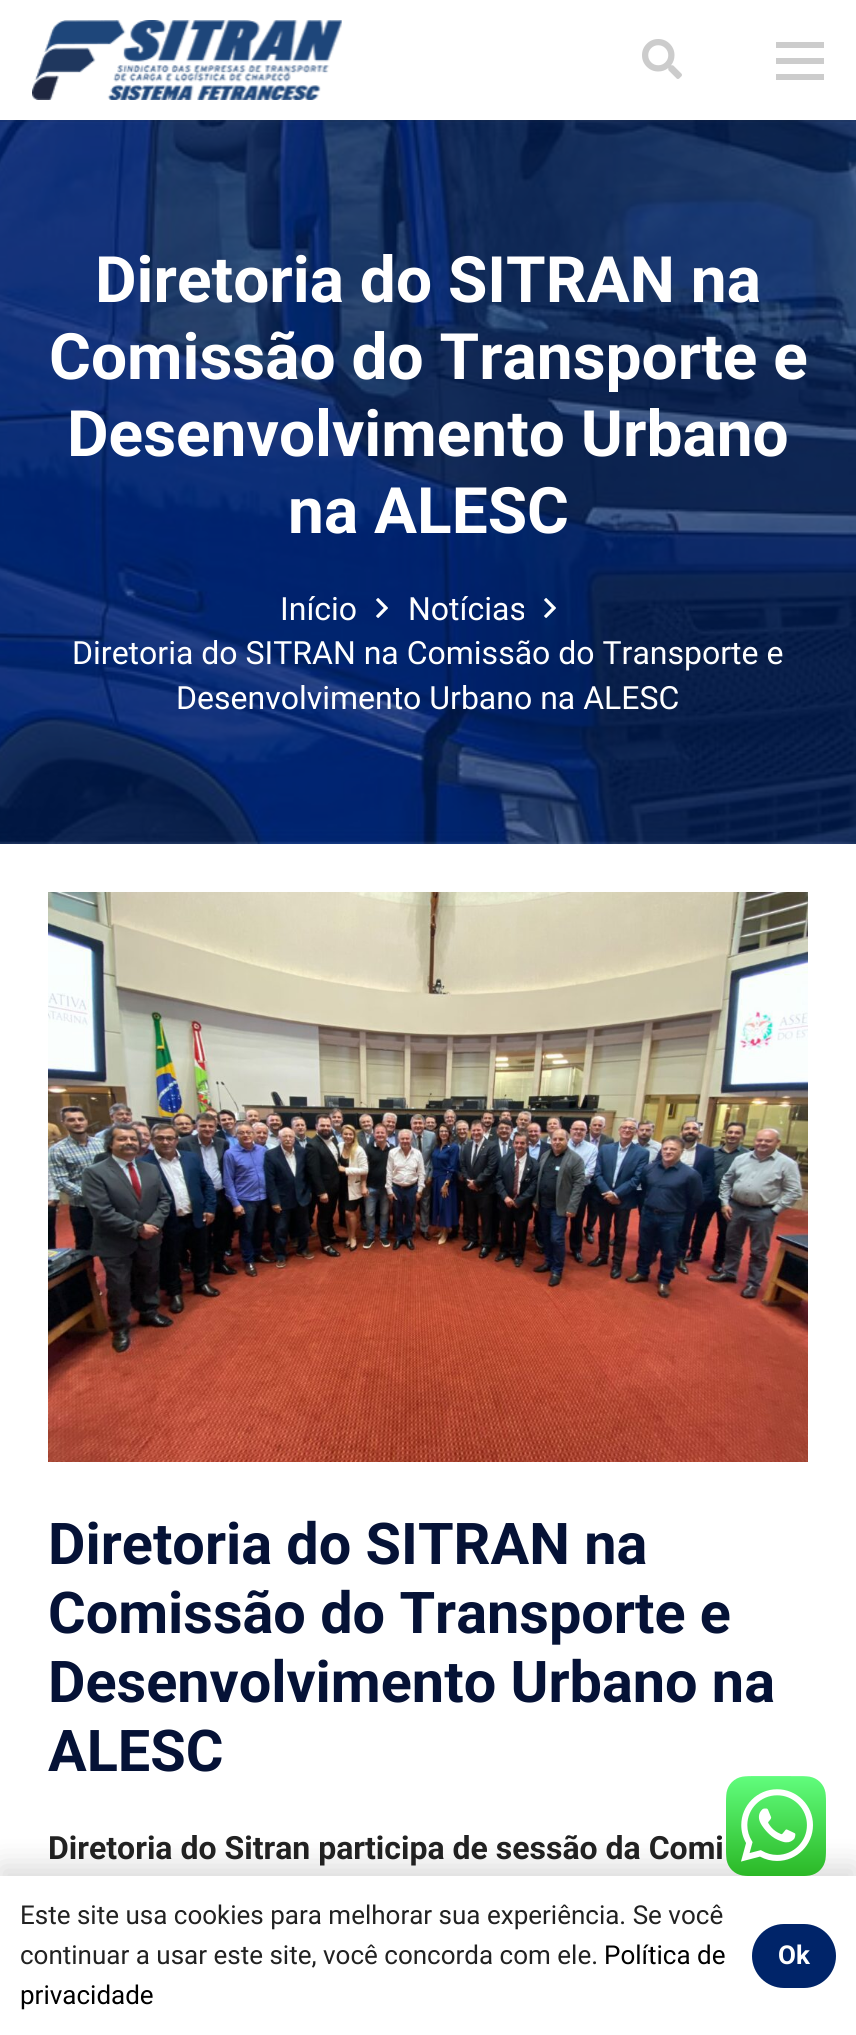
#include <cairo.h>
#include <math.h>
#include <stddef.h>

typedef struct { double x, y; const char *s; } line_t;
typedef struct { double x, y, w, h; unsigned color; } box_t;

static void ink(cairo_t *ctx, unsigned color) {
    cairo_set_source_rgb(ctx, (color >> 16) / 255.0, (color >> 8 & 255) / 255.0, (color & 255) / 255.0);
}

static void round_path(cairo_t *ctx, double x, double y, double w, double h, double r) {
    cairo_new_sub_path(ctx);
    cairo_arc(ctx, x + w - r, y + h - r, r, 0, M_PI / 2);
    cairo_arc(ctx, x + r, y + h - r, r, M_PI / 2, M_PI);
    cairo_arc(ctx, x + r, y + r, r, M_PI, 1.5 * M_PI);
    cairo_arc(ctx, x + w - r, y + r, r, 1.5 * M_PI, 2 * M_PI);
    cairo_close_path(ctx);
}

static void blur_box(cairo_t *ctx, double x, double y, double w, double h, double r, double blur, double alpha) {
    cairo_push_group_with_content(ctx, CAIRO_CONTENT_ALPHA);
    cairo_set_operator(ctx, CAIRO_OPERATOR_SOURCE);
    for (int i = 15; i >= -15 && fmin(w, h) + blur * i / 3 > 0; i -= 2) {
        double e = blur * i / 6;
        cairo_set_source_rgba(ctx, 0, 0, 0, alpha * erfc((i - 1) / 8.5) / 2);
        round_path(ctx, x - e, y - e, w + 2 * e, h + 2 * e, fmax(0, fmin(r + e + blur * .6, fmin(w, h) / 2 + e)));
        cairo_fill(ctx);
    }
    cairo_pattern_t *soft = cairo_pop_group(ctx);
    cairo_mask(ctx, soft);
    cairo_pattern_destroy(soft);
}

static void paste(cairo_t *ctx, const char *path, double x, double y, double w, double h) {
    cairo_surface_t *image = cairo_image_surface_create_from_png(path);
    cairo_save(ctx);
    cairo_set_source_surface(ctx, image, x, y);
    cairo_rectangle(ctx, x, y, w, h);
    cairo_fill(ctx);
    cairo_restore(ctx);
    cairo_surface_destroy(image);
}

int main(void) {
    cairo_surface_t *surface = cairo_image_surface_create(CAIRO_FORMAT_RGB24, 856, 2035);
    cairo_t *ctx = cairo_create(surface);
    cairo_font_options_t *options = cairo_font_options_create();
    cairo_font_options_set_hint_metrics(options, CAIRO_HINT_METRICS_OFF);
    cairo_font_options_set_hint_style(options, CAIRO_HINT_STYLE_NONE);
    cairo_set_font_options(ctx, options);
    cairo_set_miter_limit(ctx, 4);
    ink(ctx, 0xFFFFFF);
    cairo_paint(ctx);
    paste(ctx, "media/3.png", 0, 120, 856, 724);
    cairo_set_source_rgba(ctx, 0, 0, 0, 0.08);
    cairo_rectangle(ctx, 0, 120, 856, 2);
    cairo_fill(ctx);
    paste(ctx, "media/1.png", 32, 20, 310, 80);
    paste(ctx, "media/2.png", 642, 39, 40, 40);
    {
        static const box_t items[] = {
            {776, 58, 48, 6, 0xCCCCCC},
            {776, 42, 48, 6, 0xCCCCCC},
            {776, 74, 48, 6, 0xCCCCCC},
        };
        for (size_t i = 0; i < sizeof items / sizeof *items; i++) {
            ink(ctx, items[i].color);
            cairo_rectangle(ctx, items[i].x, items[i].y, items[i].w, items[i].h);
            cairo_fill(ctx);
        }
    }
    cairo_select_font_face(ctx, "Roboto", CAIRO_FONT_SLANT_NORMAL, CAIRO_FONT_WEIGHT_BOLD);
    cairo_set_font_size(ctx, 64);
    ink(ctx, 0xFFFFFF);
    {
        static const line_t items[] = {
            {95, 302, "Diretoria do SITRAN na"},
            {49, 379, "Comissão do Transporte e"},
            {67, 456, "Desenvolvimento Urbano"},
            {288, 533, "na ALESC"},
        };
        for (size_t i = 0; i < sizeof items / sizeof *items; i++) {
            cairo_move_to(ctx, items[i].x, items[i].y);
            cairo_show_text(ctx, items[i].s);
        }
    }
    cairo_select_font_face(ctx, "Roboto", CAIRO_FONT_SLANT_NORMAL, CAIRO_FONT_WEIGHT_NORMAL);
    cairo_set_font_size(ctx, 32);
    cairo_move_to(ctx, 280, 620);
    cairo_show_text(ctx, "Início");
    paste(ctx, "media/4.png", 376, 598, 12, 20);
    cairo_move_to(ctx, 408, 620);
    cairo_show_text(ctx, "Notícias");
    paste(ctx, "media/5.png", 544, 598, 12, 20);
    cairo_move_to(ctx, 72, 664);
    cairo_show_text(ctx, "Diretoria do SITRAN na Comissão do Transporte e");
    cairo_move_to(ctx, 176, 709);
    cairo_show_text(ctx, "Desenvolvimento Urbano na ALESC");
    paste(ctx, "media/6.png", 48, 892, 760, 570);
    cairo_select_font_face(ctx, "Roboto", CAIRO_FONT_SLANT_NORMAL, CAIRO_FONT_WEIGHT_BOLD);
    cairo_set_font_size(ctx, 57.6);
    ink(ctx, 0x051236);
    {
        static const line_t items[] = {
            {48, 1564, "Diretoria do SITRAN na"},
            {48, 1633, "Comissão do Transporte e"},
            {48, 1702, "Desenvolvimento Urbano na"},
            {48, 1771, "ALESC"},
        };
        for (size_t i = 0; i < sizeof items / sizeof *items; i++) {
            cairo_move_to(ctx, items[i].x, items[i].y);
            cairo_show_text(ctx, items[i].s);
        }
    }
    cairo_set_font_size(ctx, 32);
    ink(ctx, 0x222222);
    cairo_move_to(ctx, 48, 1859);
    cairo_show_text(ctx, "Diretoria do Sitran participa de sessão da Comi");
    ink(ctx, 0x000000);
    blur_box(ctx, 0, 1866, 856, 160, 0, 15, 0.15);
    paste(ctx, "media/7.png", 726, 1776, 100, 100);
    ink(ctx, 0xFFFFFF);
    cairo_rectangle(ctx, 0, 1876, 856, 159);
    cairo_fill(ctx);
    cairo_select_font_face(ctx, "Roboto", CAIRO_FONT_SLANT_NORMAL, CAIRO_FONT_WEIGHT_NORMAL);
    cairo_set_font_size(ctx, 26);
    ink(ctx, 0x222222);
    cairo_move_to(ctx, 20, 1924);
    cairo_show_text(ctx, "Este site usa cookies para melhorar sua experiência. Se você");
    cairo_move_to(ctx, 20, 1964);
    cairo_show_text(ctx, "continuar a usar este site, você concorda com ele.");
    ink(ctx, 0x000000);
    cairo_move_to(ctx, 604, 1964);
    cairo_show_text(ctx, "Política de");
    cairo_move_to(ctx, 20, 2004);
    cairo_show_text(ctx, "privacidade");
    ink(ctx, 0x002469);
    round_path(ctx, 752, 1924, 84, 64, 32);
    cairo_fill(ctx);
    cairo_select_font_face(ctx, "Roboto", CAIRO_FONT_SLANT_NORMAL, CAIRO_FONT_WEIGHT_BOLD);
    ink(ctx, 0xFFFFFF);
    cairo_move_to(ctx, 778, 1964);
    cairo_show_text(ctx, "Ok");
    cairo_surface_write_to_png(surface, "image.png");
    cairo_font_options_destroy(options);
    cairo_destroy(ctx);
    cairo_surface_destroy(surface);
    return 0;
}
